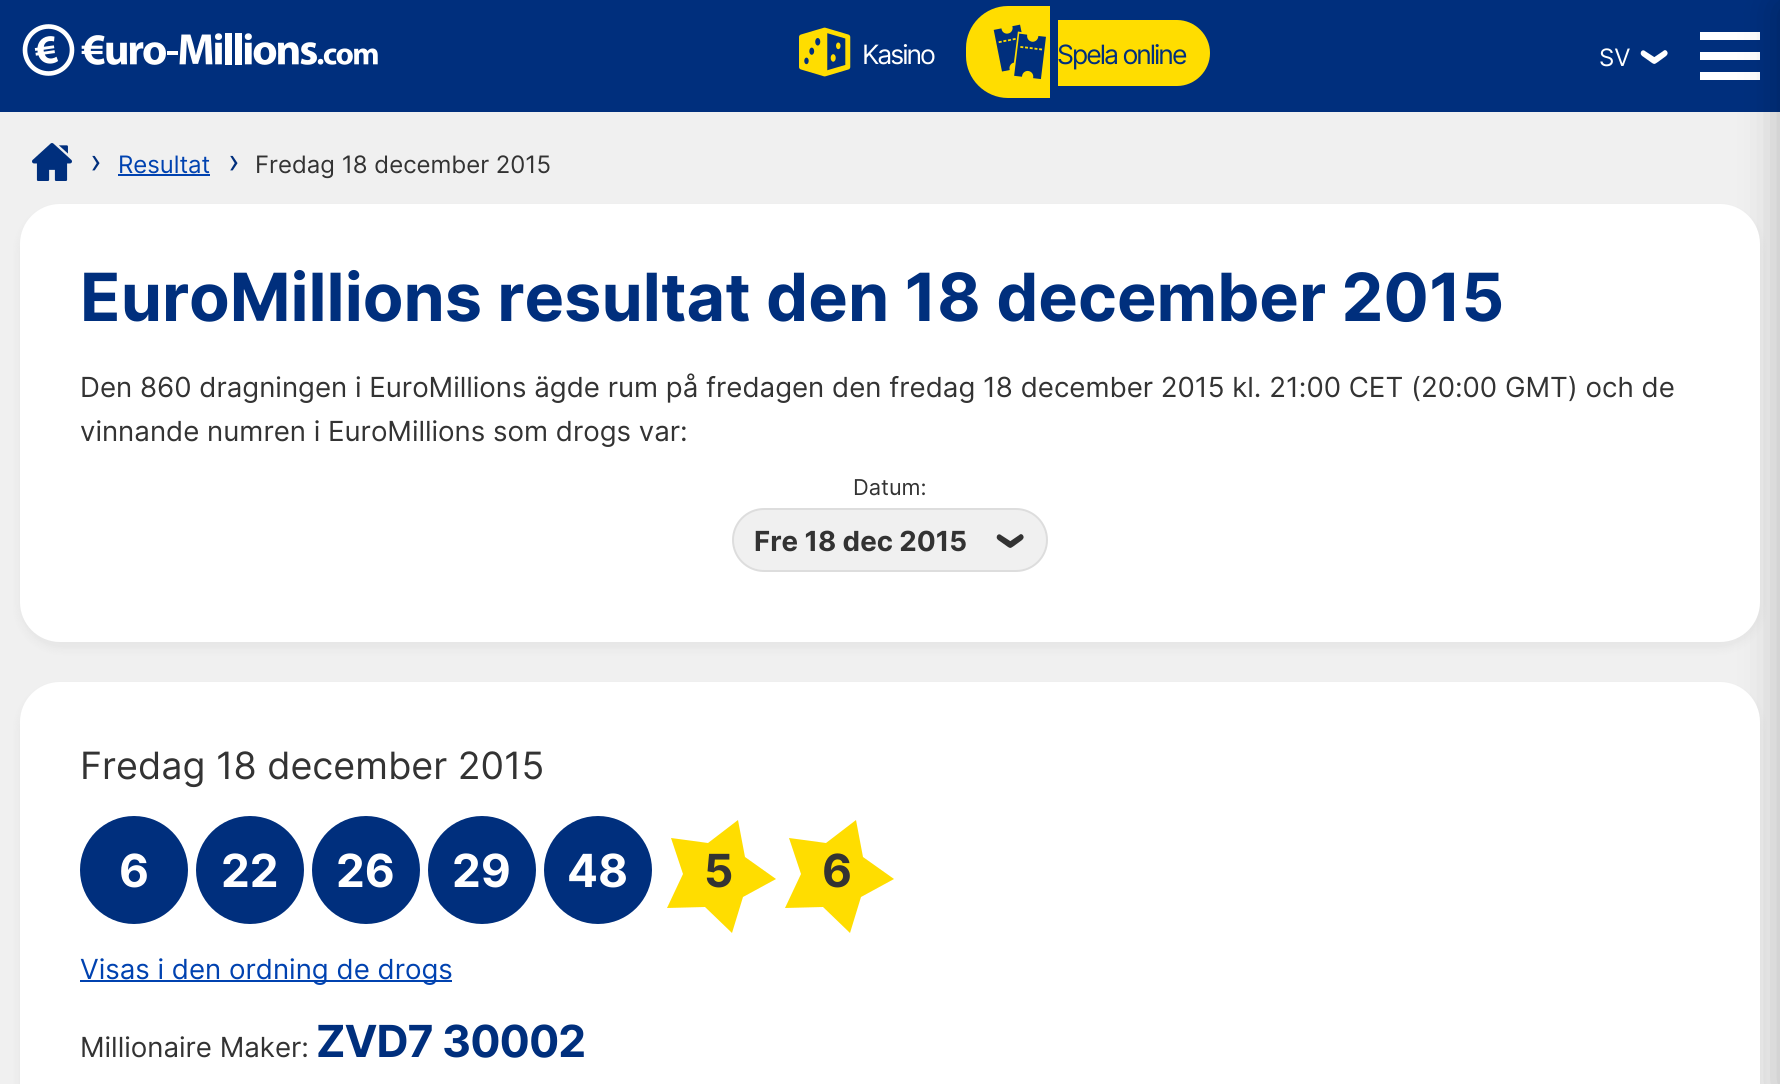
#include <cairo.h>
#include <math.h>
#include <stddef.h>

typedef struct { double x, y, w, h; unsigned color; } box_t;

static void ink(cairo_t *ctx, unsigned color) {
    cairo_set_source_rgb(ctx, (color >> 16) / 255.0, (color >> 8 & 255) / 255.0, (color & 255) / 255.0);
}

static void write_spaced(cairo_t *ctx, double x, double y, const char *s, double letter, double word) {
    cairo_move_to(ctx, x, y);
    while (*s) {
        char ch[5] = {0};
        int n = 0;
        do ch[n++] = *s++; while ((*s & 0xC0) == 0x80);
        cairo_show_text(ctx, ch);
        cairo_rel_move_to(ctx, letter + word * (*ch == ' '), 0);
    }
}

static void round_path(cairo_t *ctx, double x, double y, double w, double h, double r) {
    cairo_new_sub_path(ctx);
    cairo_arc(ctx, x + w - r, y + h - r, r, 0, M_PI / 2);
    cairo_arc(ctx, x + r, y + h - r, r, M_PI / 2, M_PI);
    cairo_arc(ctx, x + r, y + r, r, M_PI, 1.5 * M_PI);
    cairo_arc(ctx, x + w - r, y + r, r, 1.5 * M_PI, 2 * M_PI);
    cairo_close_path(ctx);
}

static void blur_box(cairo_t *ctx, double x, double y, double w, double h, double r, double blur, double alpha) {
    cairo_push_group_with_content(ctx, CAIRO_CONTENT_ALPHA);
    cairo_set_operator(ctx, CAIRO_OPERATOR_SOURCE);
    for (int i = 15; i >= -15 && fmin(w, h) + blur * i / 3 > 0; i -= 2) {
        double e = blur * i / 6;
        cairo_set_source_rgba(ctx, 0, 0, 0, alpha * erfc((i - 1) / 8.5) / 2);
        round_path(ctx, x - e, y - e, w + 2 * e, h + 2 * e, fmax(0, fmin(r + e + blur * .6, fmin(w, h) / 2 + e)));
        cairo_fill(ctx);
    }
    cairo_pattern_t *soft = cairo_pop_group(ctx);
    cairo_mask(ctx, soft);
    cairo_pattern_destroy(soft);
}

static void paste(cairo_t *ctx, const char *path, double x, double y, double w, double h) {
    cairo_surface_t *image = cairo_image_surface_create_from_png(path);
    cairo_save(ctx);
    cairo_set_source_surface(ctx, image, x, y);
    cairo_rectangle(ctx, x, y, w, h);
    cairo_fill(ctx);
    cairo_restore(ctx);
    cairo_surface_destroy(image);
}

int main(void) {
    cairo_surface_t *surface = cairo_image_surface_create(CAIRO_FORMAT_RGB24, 1780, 1084);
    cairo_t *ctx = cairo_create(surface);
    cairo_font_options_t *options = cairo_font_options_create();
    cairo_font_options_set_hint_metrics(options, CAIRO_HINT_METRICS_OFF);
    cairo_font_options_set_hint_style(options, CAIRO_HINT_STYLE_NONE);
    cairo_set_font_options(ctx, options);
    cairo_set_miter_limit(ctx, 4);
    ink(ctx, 0xF0F0F0);
    cairo_paint(ctx);
    ink(ctx, 0x002F7D);
    cairo_rectangle(ctx, 0, 0, 1780, 112);
    cairo_fill(ctx);
    paste(ctx, "media/1.png", 22, 24, 356, 52);
    paste(ctx, "media/2.png", 799, 27, 52, 50);
    cairo_select_font_face(ctx, "inter", CAIRO_FONT_SLANT_NORMAL, CAIRO_FONT_WEIGHT_NORMAL);
    cairo_set_font_size(ctx, 28);
    ink(ctx, 0xFFFFFF);
    write_spaced(ctx, 862, 64, "Kasino", -2, 0);
    ink(ctx, 0xFFDD00);
    cairo_new_path(ctx);
    cairo_move_to(ctx, 1008, 6);
    cairo_line_to(ctx, 1050, 6);
    cairo_line_to(ctx, 1050, 98);
    cairo_line_to(ctx, 1008, 98);
    cairo_curve_to(ctx, 985, 98, 966, 79, 966, 56);
    cairo_line_to(ctx, 966, 48);
    cairo_curve_to(ctx, 966, 25, 985, 6, 1008, 6);
    cairo_close_path(ctx);
    cairo_fill(ctx);
    cairo_new_path(ctx);
    cairo_move_to(ctx, 1058, 20);
    cairo_line_to(ctx, 1177, 20);
    cairo_curve_to(ctx, 1195, 20, 1210, 35, 1210, 53);
    cairo_curve_to(ctx, 1210, 71, 1195, 86, 1177, 86);
    cairo_line_to(ctx, 1058, 86);
    cairo_close_path(ctx);
    cairo_fill(ctx);
    paste(ctx, "media/3.png", 993, 24, 53, 56);
    ink(ctx, 0x002F7D);
    write_spaced(ctx, 1057, 64, "Spela online", -2, 0);
    cairo_set_font_size(ctx, 25.25);
    ink(ctx, 0xFFFFFF);
    cairo_move_to(ctx, 1599, 66);
    cairo_show_text(ctx, "SV");
    paste(ctx, "media/4.png", 1640, 50, 28, 14);
    {
        static const box_t items[] = {
            {1700, 52, 60, 8, 0xFFFFFF},
            {1700, 32, 60, 8, 0xFFFFFF},
            {1700, 72, 60, 8, 0xFFFFFF},
        };
        for (size_t i = 0; i < sizeof items / sizeof *items; i++) {
            ink(ctx, items[i].color);
            cairo_rectangle(ctx, items[i].x, items[i].y, items[i].w, items[i].h);
            cairo_fill(ctx);
        }
    }
    ink(ctx, 0x000000);
    blur_box(ctx, 1780, 6, 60, 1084, 0, 20, 0.24);
    paste(ctx, "media/5.png", 32, 143, 40, 38);
    cairo_set_font_size(ctx, 35);
    ink(ctx, 0x002F7D);
    cairo_move_to(ctx, 90, 173);
    cairo_show_text(ctx, "›");
    cairo_set_font_size(ctx, 25.25);
    ink(ctx, 0x0042B0);
    cairo_move_to(ctx, 118, 173);
    cairo_show_text(ctx, "Resultat");
    cairo_rectangle(ctx, 118, 174, 92, 2);
    cairo_fill(ctx);
    cairo_set_font_size(ctx, 35);
    ink(ctx, 0x002F7D);
    cairo_move_to(ctx, 228, 173);
    cairo_show_text(ctx, "›");
    cairo_set_font_size(ctx, 25.25);
    ink(ctx, 0x333333);
    cairo_move_to(ctx, 255, 173);
    cairo_show_text(ctx, "Fredag 18 december 2015");
    ink(ctx, 0x000000);
    blur_box(ctx, 20, 210, 1740, 438, 40, 5, 0.05);
    ink(ctx, 0xFFFFFF);
    round_path(ctx, 20, 204, 1740, 438, 40);
    cairo_fill(ctx);
    cairo_select_font_face(ctx, "inter", CAIRO_FONT_SLANT_NORMAL, CAIRO_FONT_WEIGHT_BOLD);
    cairo_set_font_size(ctx, 69.9);
    ink(ctx, 0x002F7D);
    cairo_move_to(ctx, 80, 321);
    cairo_show_text(ctx, "EuroMillions resultat den 18 december 2015");
    cairo_select_font_face(ctx, "inter", CAIRO_FONT_SLANT_NORMAL, CAIRO_FONT_WEIGHT_NORMAL);
    cairo_set_font_size(ctx, 29.12);
    ink(ctx, 0x333333);
    cairo_move_to(ctx, 80, 397);
    cairo_show_text(ctx, "Den 860 dragningen i EuroMillions ägde rum på fredagen den fredag 18 december 2015 kl. 21:00 CET (20:00 GMT) och de");
    cairo_move_to(ctx, 80, 441);
    cairo_show_text(ctx, "vinnande numren i EuroMillions som drogs var:");
    cairo_set_font_size(ctx, 23);
    cairo_move_to(ctx, 853, 495);
    cairo_show_text(ctx, "Datum:");
    ink(ctx, 0xF0F0F0);
    round_path(ctx, 733, 509, 314, 62, 31);
    cairo_fill_preserve(ctx);
    ink(ctx, 0xDDDDDD);
    cairo_stroke(ctx);
    cairo_select_font_face(ctx, "inter", CAIRO_FONT_SLANT_NORMAL, CAIRO_FONT_WEIGHT_BOLD);
    cairo_set_font_size(ctx, 29.12);
    ink(ctx, 0x333333);
    cairo_move_to(ctx, 754, 551);
    cairo_show_text(ctx, "Fre 18 dec 2015");
    paste(ctx, "media/6.png", 996, 534, 28, 14);
    ink(ctx, 0x000000);
    blur_box(ctx, 20, 688, 1740, 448, 40, 5, 0.05);
    ink(ctx, 0xFFFFFF);
    round_path(ctx, 20, 682, 1740, 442, 40);
    cairo_fill(ctx);
    cairo_select_font_face(ctx, "inter", CAIRO_FONT_SLANT_NORMAL, CAIRO_FONT_WEIGHT_NORMAL);
    cairo_set_font_size(ctx, 39.6);
    ink(ctx, 0x333333);
    cairo_move_to(ctx, 80, 779);
    cairo_show_text(ctx, "Fredag 18 december 2015");
    ink(ctx, 0x002F7D);
    cairo_new_path(ctx);
    cairo_arc(ctx, 134, 870, 54, 0, 2 * M_PI);
    cairo_fill(ctx);
    cairo_select_font_face(ctx, "inter", CAIRO_FONT_SLANT_NORMAL, CAIRO_FONT_WEIGHT_BOLD);
    cairo_set_font_size(ctx, 48);
    ink(ctx, 0xFFFFFF);
    cairo_move_to(ctx, 119, 887);
    cairo_show_text(ctx, "6");
    ink(ctx, 0x002F7D);
    cairo_new_path(ctx);
    cairo_arc(ctx, 250, 870, 54, 0, 2 * M_PI);
    cairo_fill(ctx);
    ink(ctx, 0xFFFFFF);
    cairo_move_to(ctx, 221, 887);
    cairo_show_text(ctx, "22");
    ink(ctx, 0x002F7D);
    cairo_new_path(ctx);
    cairo_arc(ctx, 366, 870, 54, 0, 2 * M_PI);
    cairo_fill(ctx);
    ink(ctx, 0xFFFFFF);
    cairo_move_to(ctx, 336, 887);
    cairo_show_text(ctx, "26");
    ink(ctx, 0x002F7D);
    cairo_new_path(ctx);
    cairo_arc(ctx, 482, 870, 54, 0, 2 * M_PI);
    cairo_fill(ctx);
    ink(ctx, 0xFFFFFF);
    cairo_move_to(ctx, 452, 887);
    cairo_show_text(ctx, "29");
    ink(ctx, 0x002F7D);
    cairo_new_path(ctx);
    cairo_arc(ctx, 598, 870, 54, 0, 2 * M_PI);
    cairo_fill(ctx);
    ink(ctx, 0xFFFFFF);
    cairo_move_to(ctx, 567, 887);
    cairo_show_text(ctx, "48");
    ink(ctx, 0xFFDD00);
    cairo_new_path(ctx);
    cairo_move_to(ctx, 732, 933);
    cairo_line_to(ctx, 705, 907);
    cairo_line_to(ctx, 667, 908);
    cairo_line_to(ctx, 683, 874);
    cairo_line_to(ctx, 671, 838);
    cairo_line_to(ctx, 708, 843);
    cairo_line_to(ctx, 738, 820);
    cairo_line_to(ctx, 745, 857);
    cairo_line_to(ctx, 776, 879);
    cairo_line_to(ctx, 743, 897);
    cairo_close_path(ctx);
    cairo_fill(ctx);
    ink(ctx, 0x333333);
    cairo_move_to(ctx, 704, 887);
    cairo_show_text(ctx, "5");
    ink(ctx, 0xFFDD00);
    cairo_new_path(ctx);
    cairo_move_to(ctx, 850, 933);
    cairo_line_to(ctx, 823, 907);
    cairo_line_to(ctx, 785, 908);
    cairo_line_to(ctx, 801, 874);
    cairo_line_to(ctx, 789, 838);
    cairo_line_to(ctx, 826, 843);
    cairo_line_to(ctx, 856, 820);
    cairo_line_to(ctx, 863, 857);
    cairo_line_to(ctx, 894, 879);
    cairo_line_to(ctx, 861, 897);
    cairo_close_path(ctx);
    cairo_fill(ctx);
    ink(ctx, 0x333333);
    cairo_move_to(ctx, 822, 887);
    cairo_show_text(ctx, "6");
    ink(ctx, 0x0042B0);
    cairo_rectangle(ctx, 80, 980, 372, 2);
    cairo_fill(ctx);
    cairo_select_font_face(ctx, "inter", CAIRO_FONT_SLANT_NORMAL, CAIRO_FONT_WEIGHT_NORMAL);
    cairo_set_font_size(ctx, 29.12);
    cairo_move_to(ctx, 80, 979);
    cairo_show_text(ctx, "Visas i den ordning de drogs");
    ink(ctx, 0x333333);
    cairo_move_to(ctx, 80, 1057);
    cairo_show_text(ctx, "Millionaire Maker:");
    cairo_select_font_face(ctx, "inter", CAIRO_FONT_SLANT_NORMAL, CAIRO_FONT_WEIGHT_BOLD);
    cairo_set_font_size(ctx, 46.5);
    ink(ctx, 0x002F7D);
    write_spaced(ctx, 316, 1057, "ZVD7 30002", -1, 0);
    cairo_surface_write_to_png(surface, "image.png");
    cairo_font_options_destroy(options);
    cairo_destroy(ctx);
    cairo_surface_destroy(surface);
    return 0;
}
